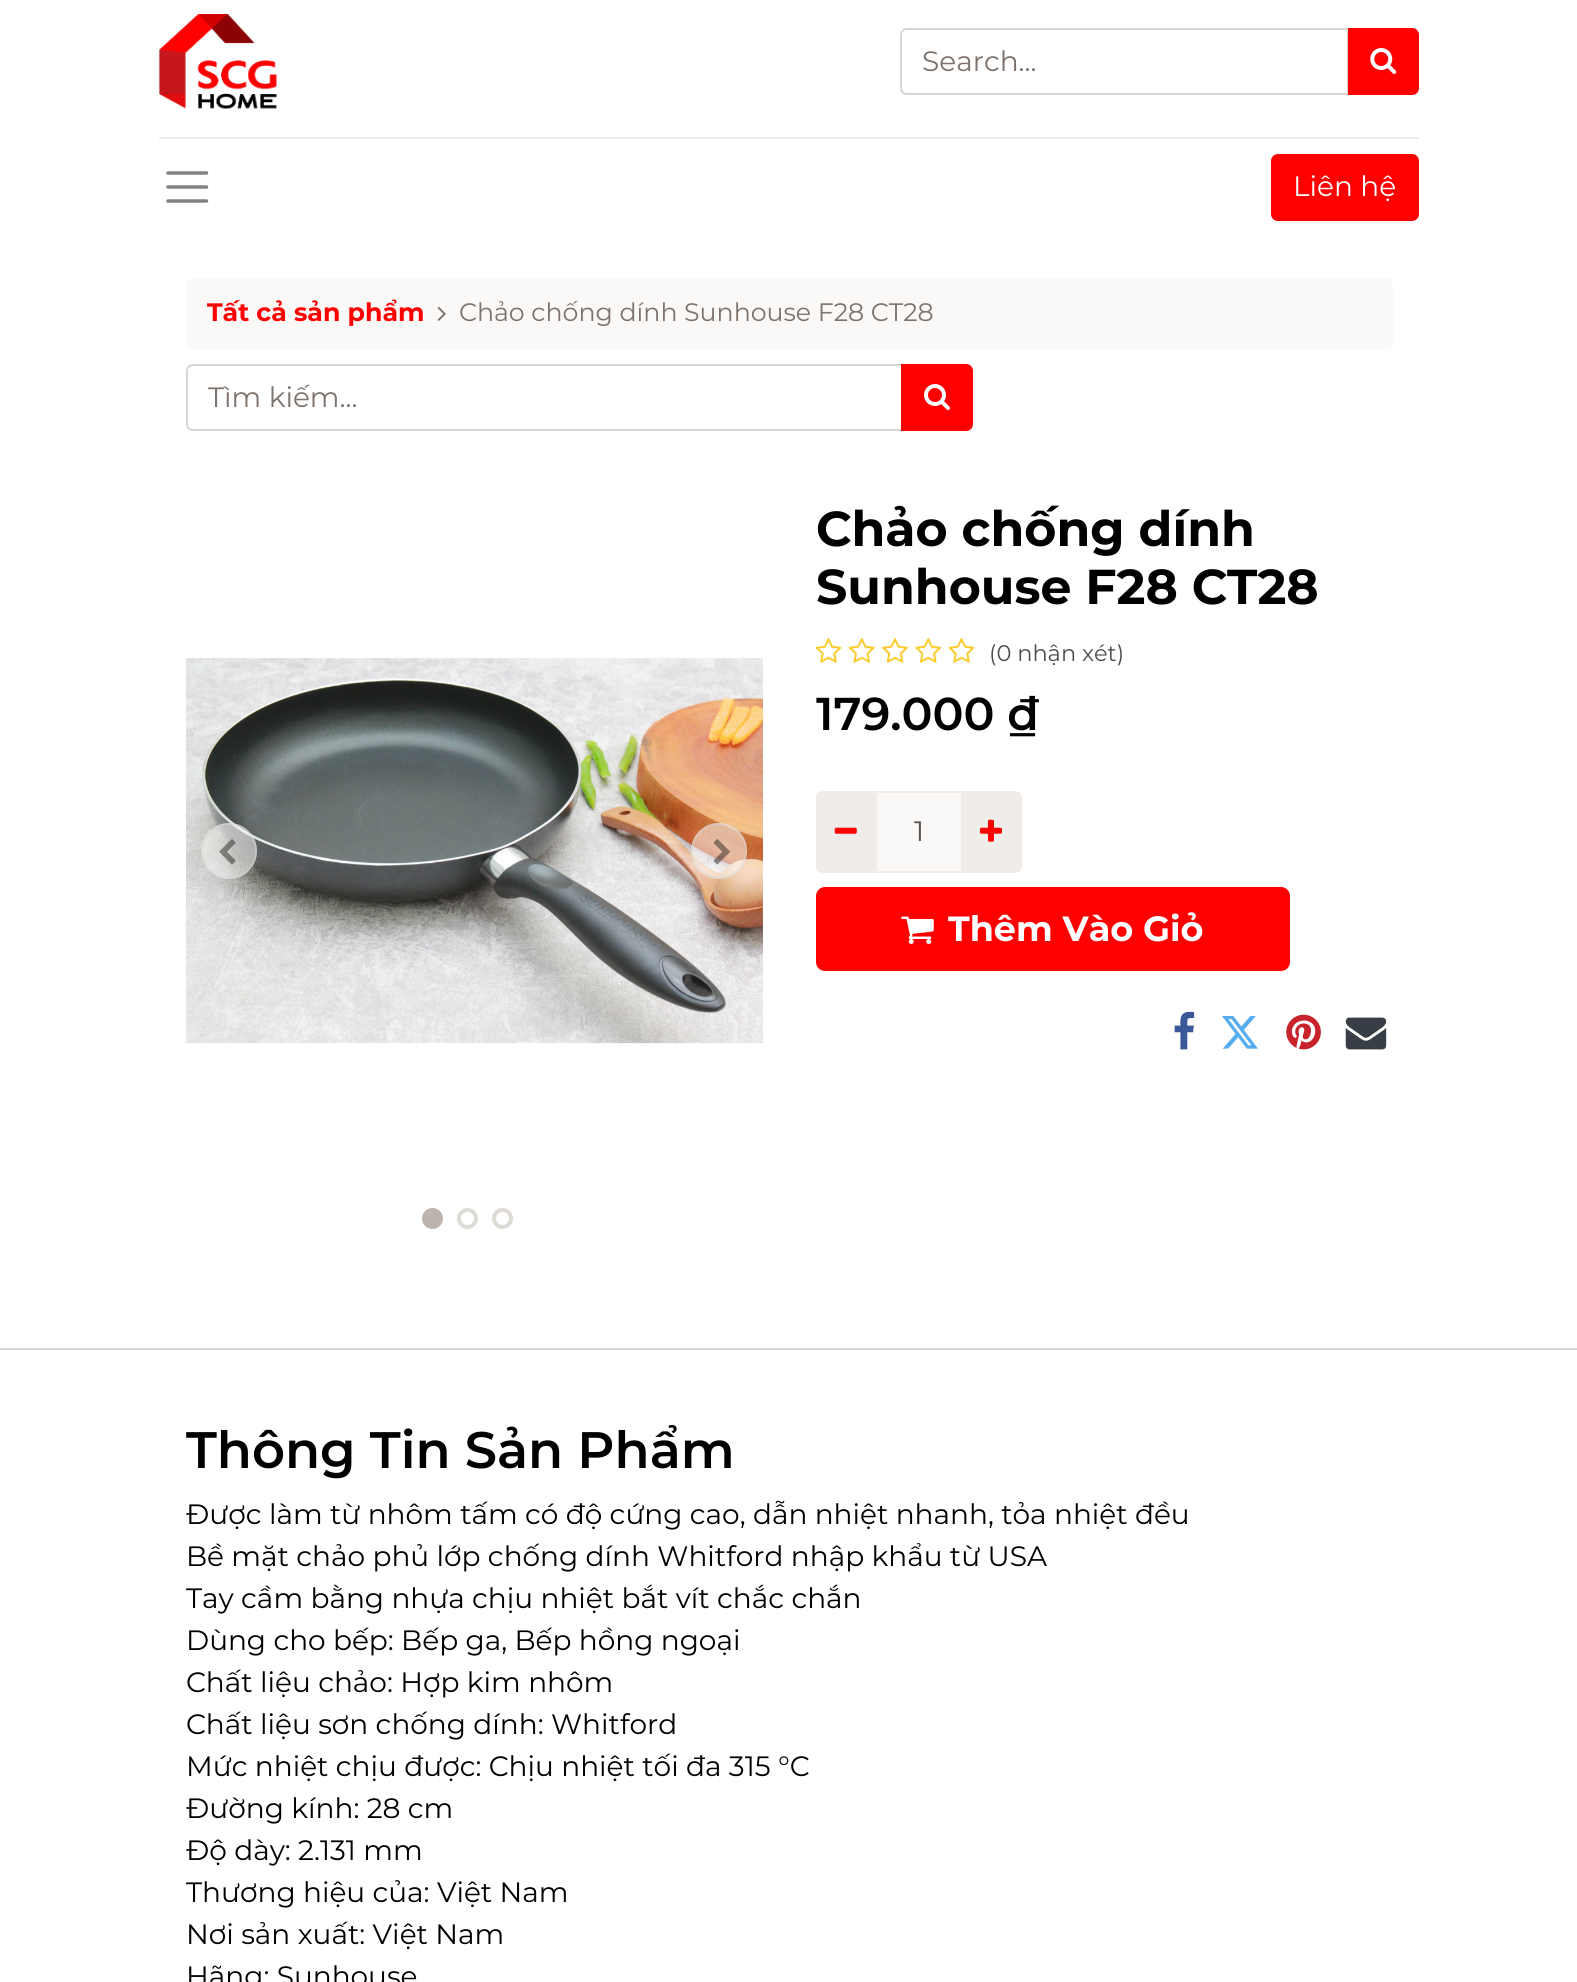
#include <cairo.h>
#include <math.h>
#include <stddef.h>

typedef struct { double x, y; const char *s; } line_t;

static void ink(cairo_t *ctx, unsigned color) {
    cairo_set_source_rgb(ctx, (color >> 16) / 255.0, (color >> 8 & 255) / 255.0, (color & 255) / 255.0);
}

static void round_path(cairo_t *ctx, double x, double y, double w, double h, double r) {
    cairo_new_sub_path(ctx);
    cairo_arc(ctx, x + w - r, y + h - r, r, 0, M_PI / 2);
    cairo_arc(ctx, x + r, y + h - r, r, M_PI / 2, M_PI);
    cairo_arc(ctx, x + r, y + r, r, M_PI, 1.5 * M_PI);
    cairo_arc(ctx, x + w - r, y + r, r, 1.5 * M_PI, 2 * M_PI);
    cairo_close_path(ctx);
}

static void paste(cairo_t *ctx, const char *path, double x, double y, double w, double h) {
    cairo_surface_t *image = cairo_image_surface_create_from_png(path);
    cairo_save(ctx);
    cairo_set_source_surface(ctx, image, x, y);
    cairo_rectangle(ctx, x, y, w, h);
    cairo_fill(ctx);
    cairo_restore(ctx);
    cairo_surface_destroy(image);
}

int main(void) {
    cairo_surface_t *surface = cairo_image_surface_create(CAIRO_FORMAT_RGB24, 1577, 1982);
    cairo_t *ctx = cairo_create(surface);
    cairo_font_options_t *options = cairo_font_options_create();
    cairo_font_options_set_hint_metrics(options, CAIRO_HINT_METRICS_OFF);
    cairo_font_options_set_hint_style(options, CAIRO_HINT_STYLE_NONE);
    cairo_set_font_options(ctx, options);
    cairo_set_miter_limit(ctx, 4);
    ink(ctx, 0xFFFFFF);
    cairo_paint(ctx);
    paste(ctx, "media/1.png", 159, 14, 118, 95);
    cairo_new_path(ctx);
    cairo_move_to(ctx, 907, 29);
    cairo_line_to(ctx, 1348, 29);
    cairo_line_to(ctx, 1348, 94);
    cairo_line_to(ctx, 907, 94);
    cairo_curve_to(ctx, 903.5, 94, 901, 91.5, 901, 88);
    cairo_line_to(ctx, 901, 35);
    cairo_curve_to(ctx, 901, 31.5, 903.5, 29, 907, 29);
    cairo_close_path(ctx);
    ink(ctx, 0xDAD3CE);
    cairo_stroke(ctx);
    cairo_select_font_face(ctx, "Montserrat", CAIRO_FONT_SLANT_NORMAL, CAIRO_FONT_WEIGHT_NORMAL);
    cairo_set_font_size(ctx, 28);
    ink(ctx, 0x7D736C);
    cairo_move_to(ctx, 922, 71);
    cairo_show_text(ctx, "Search...");
    ink(ctx, 0xFF0000);
    cairo_new_path(ctx);
    cairo_move_to(ctx, 1349, 29);
    cairo_line_to(ctx, 1412, 29);
    cairo_curve_to(ctx, 1415.5, 29, 1418, 31.5, 1418, 35);
    cairo_line_to(ctx, 1418, 88);
    cairo_curve_to(ctx, 1418, 91.5, 1415.5, 94, 1412, 94);
    cairo_line_to(ctx, 1349, 94);
    cairo_close_path(ctx);
    cairo_fill_preserve(ctx);
    cairo_stroke(ctx);
    paste(ctx, "media/2.png", 1370, 48, 27, 26);
    ink(ctx, 0xEFECE9);
    cairo_rectangle(ctx, 159, 137, 1260, 2);
    cairo_fill(ctx);
    cairo_new_path(ctx);
    cairo_move_to(ctx, 168, 173);
    cairo_line_to(ctx, 206.5, 173);
    cairo_move_to(ctx, 168, 187);
    cairo_line_to(ctx, 206.5, 187);
    cairo_move_to(ctx, 168, 201);
    cairo_line_to(ctx, 206.5, 201);
    ink(ctx, 0x808080);
    cairo_set_line_width(ctx, 3.5);
    cairo_set_line_cap(ctx, CAIRO_LINE_CAP_ROUND);
    cairo_stroke(ctx);
    ink(ctx, 0xFF0000);
    round_path(ctx, 1272, 155, 146, 65, 6);
    cairo_fill_preserve(ctx);
    cairo_set_line_width(ctx, 2);
    cairo_set_line_cap(ctx, CAIRO_LINE_CAP_BUTT);
    cairo_stroke(ctx);
    ink(ctx, 0xFFFFFF);
    cairo_move_to(ctx, 1293, 196);
    cairo_show_text(ctx, "Liên hệ");
    ink(ctx, 0xFAF9F8);
    round_path(ctx, 186, 278, 1207, 72, 7);
    cairo_fill(ctx);
    cairo_select_font_face(ctx, "Montserrat", CAIRO_FONT_SLANT_NORMAL, CAIRO_FONT_WEIGHT_BOLD);
    cairo_set_font_size(ctx, 25.25);
    ink(ctx, 0xFF0000);
    cairo_move_to(ctx, 207, 321);
    cairo_show_text(ctx, "Tất cả sản phẩm");
    paste(ctx, "media/3.png", 437, 307, 9, 14);
    cairo_select_font_face(ctx, "Montserrat", CAIRO_FONT_SLANT_NORMAL, CAIRO_FONT_WEIGHT_NORMAL);
    ink(ctx, 0x7D736C);
    cairo_move_to(ctx, 459, 321);
    cairo_show_text(ctx, "Chảo chống dính Sunhouse F28 CT28");
    cairo_new_path(ctx);
    cairo_move_to(ctx, 193, 365);
    cairo_line_to(ctx, 902, 365);
    cairo_line_to(ctx, 902, 430);
    cairo_line_to(ctx, 193, 430);
    cairo_curve_to(ctx, 189.5, 430, 187, 427.5, 187, 424);
    cairo_line_to(ctx, 187, 371);
    cairo_curve_to(ctx, 187, 367.5, 189.5, 365, 193, 365);
    cairo_close_path(ctx);
    ink(ctx, 0xDAD3CE);
    cairo_stroke(ctx);
    cairo_set_font_size(ctx, 28);
    ink(ctx, 0x7D736C);
    cairo_move_to(ctx, 208, 407);
    cairo_show_text(ctx, "Tìm kiếm...");
    ink(ctx, 0xFF0000);
    cairo_new_path(ctx);
    cairo_move_to(ctx, 902, 365);
    cairo_line_to(ctx, 966, 365);
    cairo_curve_to(ctx, 969.5, 365, 972, 367.5, 972, 371);
    cairo_line_to(ctx, 972, 424);
    cairo_curve_to(ctx, 972, 427.5, 969.5, 430, 966, 430);
    cairo_line_to(ctx, 902, 430);
    cairo_close_path(ctx);
    cairo_fill_preserve(ctx);
    cairo_stroke(ctx);
    paste(ctx, "media/4.png", 924, 384, 26, 26);
    paste(ctx, "media/5.png", 186, 658, 577, 386);
    cairo_set_source_rgba(ctx, 1, 1, 1, 0.5);
    cairo_arc(ctx, 229, 851, 28, 0, 2 * M_PI);
    cairo_fill(ctx);
    cairo_arc(ctx, 229, 851, 27, 0, 2 * M_PI);
    cairo_set_source_rgba(ctx, 0.855, 0.827, 0.808, 0.5);
    cairo_stroke(ctx);
    paste(ctx, "media/6.png", 219, 839, 17, 26);
    cairo_set_source_rgba(ctx, 1, 1, 1, 0.5);
    cairo_arc(ctx, 719, 851, 28, 0, 2 * M_PI);
    cairo_fill(ctx);
    cairo_arc(ctx, 719, 851, 27, 0, 2 * M_PI);
    cairo_set_source_rgba(ctx, 0.855, 0.827, 0.808, 0.5);
    cairo_stroke(ctx);
    paste(ctx, "media/7.png", 713, 839, 17, 26);
    ink(ctx, 0xBDB4AD);
    cairo_arc(ctx, 432.5, 1218.5, 8.5, 0, 2 * M_PI);
    cairo_fill_preserve(ctx);
    cairo_set_line_width(ctx, 4);
    cairo_stroke(ctx);
    cairo_arc(ctx, 467.5, 1218.5, 8.5, 0, 2 * M_PI);
    ink(ctx, 0xDEDAD6);
    cairo_stroke(ctx);
    cairo_arc(ctx, 502.5, 1218.5, 8.5, 0, 2 * M_PI);
    cairo_stroke(ctx);
    cairo_select_font_face(ctx, "Montserrat", CAIRO_FONT_SLANT_NORMAL, CAIRO_FONT_WEIGHT_BOLD);
    cairo_set_font_size(ctx, 49);
    ink(ctx, 0x000000);
    cairo_move_to(ctx, 816, 546);
    cairo_show_text(ctx, "Chảo chống dính");
    cairo_move_to(ctx, 816, 604);
    cairo_show_text(ctx, "Sunhouse F28 CT28");
    paste(ctx, "media/8.png", 815, 638, 27, 25);
    paste(ctx, "media/9.png", 848, 638, 27, 25);
    paste(ctx, "media/10.png", 882, 638, 26, 25);
    paste(ctx, "media/11.png", 915, 638, 27, 25);
    paste(ctx, "media/8.png", 948, 638, 27, 25);
    cairo_select_font_face(ctx, "Montserrat", CAIRO_FONT_SLANT_NORMAL, CAIRO_FONT_WEIGHT_NORMAL);
    cairo_set_font_size(ctx, 22.5);
    ink(ctx, 0x4D4D4D);
    cairo_move_to(ctx, 989, 661);
    cairo_show_text(ctx, "(0 nhận xét)");
    cairo_select_font_face(ctx, "Montserrat SemiBold", CAIRO_FONT_SLANT_NORMAL, CAIRO_FONT_WEIGHT_NORMAL);
    cairo_set_font_size(ctx, 46);
    ink(ctx, 0x000000);
    cairo_move_to(ctx, 816, 730);
    cairo_show_text(ctx, "179.000 ₫");
    ink(ctx, 0xFAF9F8);
    cairo_rectangle(ctx, 876, 792, 86, 80);
    cairo_fill_preserve(ctx);
    ink(ctx, 0xEFECE9);
    cairo_set_line_width(ctx, 2);
    cairo_stroke(ctx);
    cairo_new_path(ctx);
    cairo_move_to(ctx, 823, 791);
    cairo_line_to(ctx, 877, 791);
    cairo_line_to(ctx, 877, 873);
    cairo_line_to(ctx, 823, 873);
    cairo_curve_to(ctx, 819, 873, 816, 870, 816, 866);
    cairo_line_to(ctx, 816, 798);
    cairo_curve_to(ctx, 816, 794, 819, 791, 823, 791);
    cairo_close_path(ctx);
    cairo_fill(ctx);
    paste(ctx, "media/12.png", 834, 827, 23, 7);
    cairo_select_font_face(ctx, "Montserrat", CAIRO_FONT_SLANT_NORMAL, CAIRO_FONT_WEIGHT_NORMAL);
    cairo_set_font_size(ctx, 28);
    ink(ctx, 0x574F49);
    cairo_move_to(ctx, 914, 841);
    cairo_show_text(ctx, "1");
    ink(ctx, 0xEFECE9);
    cairo_new_path(ctx);
    cairo_move_to(ctx, 961, 791);
    cairo_line_to(ctx, 1015, 791);
    cairo_curve_to(ctx, 1019, 791, 1022, 794, 1022, 798);
    cairo_line_to(ctx, 1022, 866);
    cairo_curve_to(ctx, 1022, 870, 1019, 873, 1015, 873);
    cairo_line_to(ctx, 961, 873);
    cairo_close_path(ctx);
    cairo_fill(ctx);
    paste(ctx, "media/13.png", 980, 819, 22, 23);
    ink(ctx, 0xFF0000);
    round_path(ctx, 817, 888, 472, 82, 8);
    cairo_fill_preserve(ctx);
    cairo_stroke(ctx);
    paste(ctx, "media/14.png", 901, 916, 33, 28);
    cairo_select_font_face(ctx, "Montserrat", CAIRO_FONT_SLANT_NORMAL, CAIRO_FONT_WEIGHT_BOLD);
    cairo_set_font_size(ctx, 35);
    ink(ctx, 0xFFFFFF);
    cairo_move_to(ctx, 948, 941);
    cairo_show_text(ctx, "Thêm Vào Giỏ");
    paste(ctx, "media/15.png", 1174, 1011, 21, 39);
    paste(ctx, "media/16.png", 1222, 1016, 36, 33);
    paste(ctx, "media/17.png", 1286, 1014, 35, 36);
    paste(ctx, "media/18.png", 1345, 1017, 42, 33);
    ink(ctx, 0xDAD3CE);
    cairo_rectangle(ctx, 0, 1348, 1577, 2);
    cairo_fill(ctx);
    cairo_select_font_face(ctx, "Montserrat SemiBold", CAIRO_FONT_SLANT_NORMAL, CAIRO_FONT_WEIGHT_NORMAL);
    cairo_set_font_size(ctx, 51.25);
    ink(ctx, 0x000000);
    cairo_move_to(ctx, 186, 1468);
    cairo_show_text(ctx, "Thông Tin Sản Phẩm");
    cairo_select_font_face(ctx, "Montserrat", CAIRO_FONT_SLANT_NORMAL, CAIRO_FONT_WEIGHT_NORMAL);
    cairo_set_font_size(ctx, 28);
    {
        static const line_t items[] = {
            {186, 1524, "Được làm từ nhôm tấm có độ cứng cao, dẫn nhiệt nhanh, tỏa nhiệt đều"},
            {186, 1566, "Bề mặt chảo phủ lớp chống dính Whitford nhập khẩu từ USA"},
            {186, 1608, "Tay cầm bằng nhựa chịu nhiệt bắt vít chắc chắn"},
            {186, 1650, "Dùng cho bếp: Bếp ga, Bếp hồng ngoại"},
            {186, 1692, "Chất liệu chảo: Hợp kim nhôm"},
            {186, 1734, "Chất liệu sơn chống dính: Whitford"},
            {186, 1776, "Mức nhiệt chịu được: Chịu nhiệt tối đa 315 °C"},
            {186, 1818, "Đường kính: 28 cm"},
            {186, 1860, "Độ dày: 2.131 mm"},
            {186, 1902, "Thương hiệu của: Việt Nam"},
            {186, 1944, "Nơi sản xuất: Việt Nam"},
            {186, 1986, "Hãng: Sunhouse"},
        };
        for (size_t i = 0; i < sizeof items / sizeof *items; i++) {
            cairo_move_to(ctx, items[i].x, items[i].y);
            cairo_show_text(ctx, items[i].s);
        }
    }
    cairo_surface_write_to_png(surface, "image.png");
    cairo_font_options_destroy(options);
    cairo_destroy(ctx);
    cairo_surface_destroy(surface);
    return 0;
}
